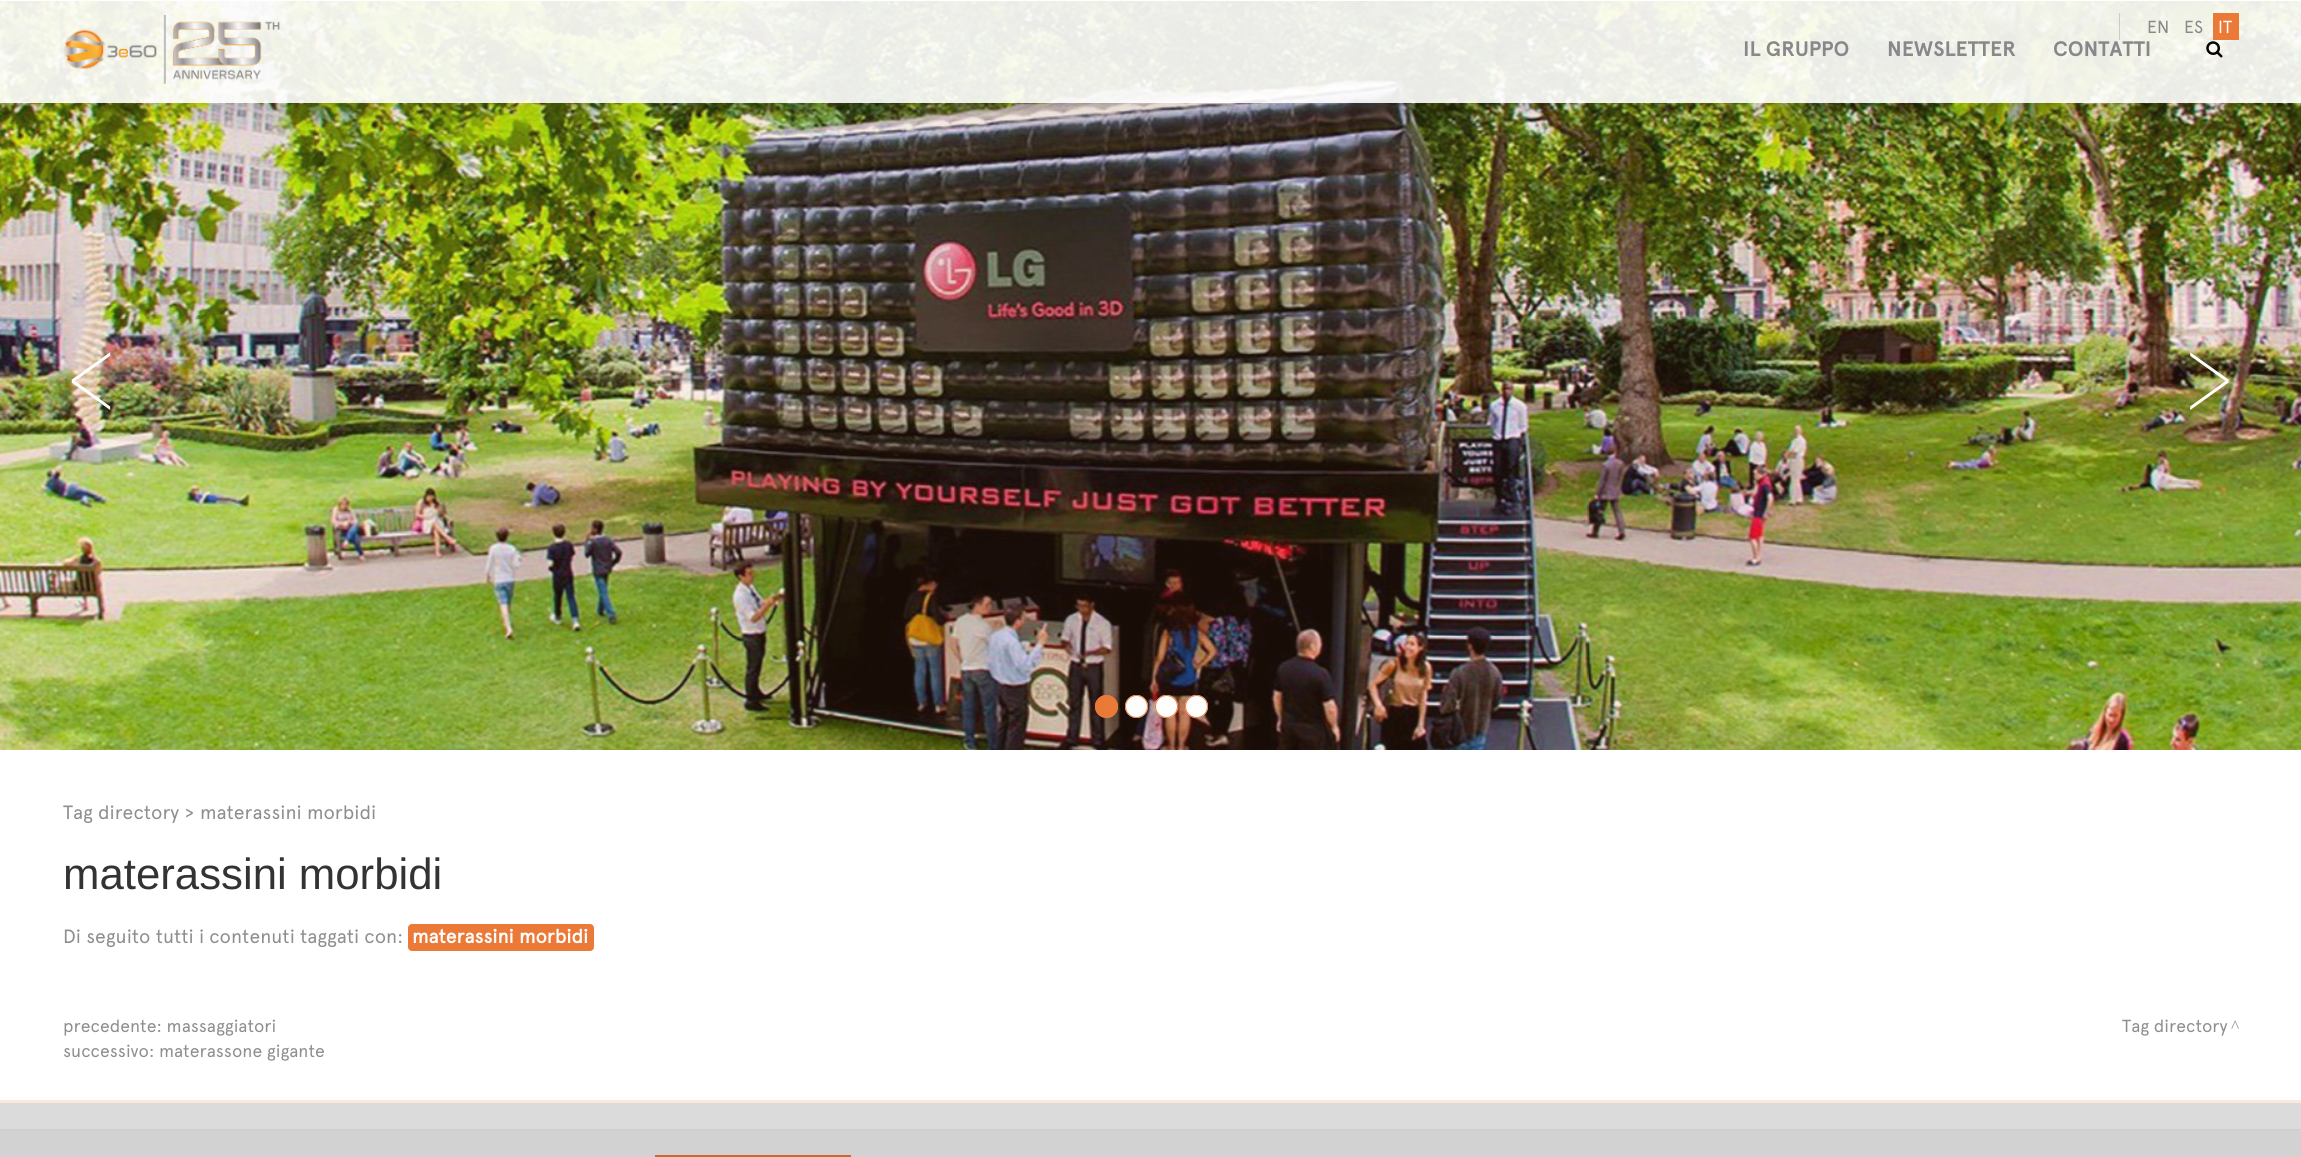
#include <cairo.h>
#include <math.h>
#include <stddef.h>

typedef struct { double x, y; const char *s; } line_t;
typedef struct { double x, y, w, h; unsigned color; } box_t;

static void ink(cairo_t *ctx, unsigned color) {
    cairo_set_source_rgb(ctx, (color >> 16) / 255.0, (color >> 8 & 255) / 255.0, (color & 255) / 255.0);
}

static void round_path(cairo_t *ctx, double x, double y, double w, double h, double r) {
    cairo_new_sub_path(ctx);
    cairo_arc(ctx, x + w - r, y + h - r, r, 0, M_PI / 2);
    cairo_arc(ctx, x + r, y + h - r, r, M_PI / 2, M_PI);
    cairo_arc(ctx, x + r, y + r, r, M_PI, 1.5 * M_PI);
    cairo_arc(ctx, x + w - r, y + r, r, 1.5 * M_PI, 2 * M_PI);
    cairo_close_path(ctx);
}

static void blur_box(cairo_t *ctx, double x, double y, double w, double h, double r, double blur, double alpha) {
    cairo_push_group_with_content(ctx, CAIRO_CONTENT_ALPHA);
    cairo_set_operator(ctx, CAIRO_OPERATOR_SOURCE);
    for (int i = 15; i >= -15 && fmin(w, h) + blur * i / 3 > 0; i -= 2) {
        double e = blur * i / 6;
        cairo_set_source_rgba(ctx, 0, 0, 0, alpha * erfc((i - 1) / 8.5) / 2);
        round_path(ctx, x - e, y - e, w + 2 * e, h + 2 * e, fmax(0, fmin(r + e + blur * .6, fmin(w, h) / 2 + e)));
        cairo_fill(ctx);
    }
    cairo_pattern_t *soft = cairo_pop_group(ctx);
    cairo_mask(ctx, soft);
    cairo_pattern_destroy(soft);
}

static void paste(cairo_t *ctx, const char *path, double x, double y, double w, double h) {
    cairo_surface_t *image = cairo_image_surface_create_from_png(path);
    cairo_save(ctx);
    cairo_set_source_surface(ctx, image, x, y);
    cairo_rectangle(ctx, x, y, w, h);
    cairo_fill(ctx);
    cairo_restore(ctx);
    cairo_surface_destroy(image);
}

int main(void) {
    cairo_surface_t *surface = cairo_image_surface_create(CAIRO_FORMAT_RGB24, 2301, 1157);
    cairo_t *ctx = cairo_create(surface);
    cairo_font_options_t *options = cairo_font_options_create();
    cairo_font_options_set_hint_metrics(options, CAIRO_HINT_METRICS_OFF);
    cairo_font_options_set_hint_style(options, CAIRO_HINT_STYLE_NONE);
    cairo_set_font_options(ctx, options);
    cairo_set_miter_limit(ctx, 4);
    ink(ctx, 0xFFFFFF);
    cairo_paint(ctx);
    ink(ctx, 0xDBDBDB);
    cairo_rectangle(ctx, 0, 1103, 2301, 26);
    cairo_fill(ctx);
    paste(ctx, "media/3.png", 0, 0, 2301, 750);
    ink(ctx, 0xFFFFFF);
    round_path(ctx, 0, 0, 2301, 1, 0.5);
    cairo_fill(ctx);
    cairo_save(ctx);
    cairo_set_fill_rule(ctx, CAIRO_FILL_RULE_EVEN_ODD);
    cairo_new_path(ctx);
    cairo_move_to(ctx, 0, 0);
    cairo_line_to(ctx, 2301, 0);
    cairo_line_to(ctx, 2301, 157);
    cairo_line_to(ctx, 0, 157);
    cairo_close_path(ctx);
    cairo_move_to(ctx, 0, 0);
    cairo_line_to(ctx, 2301, 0);
    cairo_line_to(ctx, 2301, 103);
    cairo_line_to(ctx, 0, 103);
    cairo_close_path(ctx);
    cairo_clip(ctx);
    ink(ctx, 0x000000);
    blur_box(ctx, 0, 6, 2301, 103, 0, 15.5, 0.15);
    cairo_restore(ctx);
    cairo_set_source_rgba(ctx, 1, 1, 1, 0.9);
    cairo_rectangle(ctx, 0, 0, 2301, 103);
    cairo_fill(ctx);
    paste(ctx, "media/1.png", 64, 15, 216, 69);
    ink(ctx, 0xCBCBCB);
    cairo_rectangle(ctx, 2119, 13, 1, 27);
    cairo_fill(ctx);
    cairo_select_font_face(ctx, "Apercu", CAIRO_FONT_SLANT_NORMAL, CAIRO_FONT_WEIGHT_NORMAL);
    cairo_set_font_size(ctx, 17.5);
    ink(ctx, 0x88888B);
    cairo_move_to(ctx, 2147, 33);
    cairo_show_text(ctx, "EN");
    cairo_move_to(ctx, 2184, 33);
    cairo_show_text(ctx, "ES");
    ink(ctx, 0xEB7A38);
    cairo_rectangle(ctx, 2213, 13, 26, 27);
    cairo_fill(ctx);
    ink(ctx, 0xFFFFFF);
    cairo_move_to(ctx, 2218, 33);
    cairo_show_text(ctx, "IT");
    cairo_select_font_face(ctx, "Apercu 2", CAIRO_FONT_SLANT_NORMAL, CAIRO_FONT_WEIGHT_BOLD);
    cairo_set_font_size(ctx, 21);
    ink(ctx, 0x88888B);
    {
        static const line_t items[] = {
            {1743, 56, "IL GRUPPO"},
            {1887, 56, "NEWSLETTER"},
            {2053, 56, "CONTATTI"},
        };
        for (size_t i = 0; i < sizeof items / sizeof *items; i++) {
            cairo_move_to(ctx, items[i].x, items[i].y);
            cairo_show_text(ctx, items[i].s);
        }
    }
    paste(ctx, "media/2.png", 2206, 41, 17, 17);
    cairo_select_font_face(ctx, "Raleway Thin", CAIRO_FONT_SLANT_NORMAL, CAIRO_FONT_WEIGHT_NORMAL);
    cairo_set_font_size(ctx, 162);
    ink(ctx, 0xFFFFFF);
    cairo_move_to(ctx, 65, 423);
    cairo_show_text(ctx, "‹");
    cairo_move_to(ctx, 2179, 423);
    cairo_show_text(ctx, "›");
    cairo_set_source_rgba(ctx, 0.922, 0.478, 0.22, 0.99);
    cairo_new_path(ctx);
    cairo_arc(ctx, 1106.5, 706.5, 11.5, 0, 2 * M_PI);
    cairo_fill(ctx);
    cairo_arc(ctx, 1106.5, 706.5, 11, 0, 2 * M_PI);
    cairo_set_line_width(ctx, 1);
    cairo_stroke(ctx);
    cairo_set_source_rgba(ctx, 1, 1, 1, 0.99);
    cairo_arc(ctx, 1136.5, 706.5, 11.5, 0, 2 * M_PI);
    cairo_fill(ctx);
    cairo_arc(ctx, 1136.5, 706.5, 11, 0, 2 * M_PI);
    cairo_set_source_rgba(ctx, 0.922, 0.478, 0.22, 0.99);
    cairo_stroke(ctx);
    cairo_set_source_rgba(ctx, 1, 1, 1, 0.99);
    cairo_arc(ctx, 1166.5, 706.5, 11.5, 0, 2 * M_PI);
    cairo_fill(ctx);
    cairo_arc(ctx, 1166.5, 706.5, 11, 0, 2 * M_PI);
    cairo_set_source_rgba(ctx, 0.922, 0.478, 0.22, 0.99);
    cairo_stroke(ctx);
    cairo_set_source_rgba(ctx, 1, 1, 1, 0.99);
    cairo_arc(ctx, 1196.5, 706.5, 11.5, 0, 2 * M_PI);
    cairo_fill(ctx);
    cairo_arc(ctx, 1196.5, 706.5, 11, 0, 2 * M_PI);
    cairo_set_source_rgba(ctx, 0.922, 0.478, 0.22, 0.99);
    cairo_stroke(ctx);
    cairo_select_font_face(ctx, "Apercu", CAIRO_FONT_SLANT_NORMAL, CAIRO_FONT_WEIGHT_NORMAL);
    cairo_set_font_size(ctx, 19.25);
    ink(ctx, 0x8E8E8E);
    {
        static const line_t items[] = {
            {63, 819, "Tag directory"},
            {185, 819, ">"},
            {200, 819, "materassini morbidi"},
        };
        for (size_t i = 0; i < sizeof items / sizeof *items; i++) {
            cairo_move_to(ctx, items[i].x, items[i].y);
            cairo_show_text(ctx, items[i].s);
        }
    }
    cairo_select_font_face(ctx, "Liberation Sans", CAIRO_FONT_SLANT_NORMAL, CAIRO_FONT_WEIGHT_NORMAL);
    cairo_set_font_size(ctx, 43.75);
    ink(ctx, 0x333333);
    cairo_move_to(ctx, 63, 889);
    cairo_show_text(ctx, "materassini morbidi");
    cairo_select_font_face(ctx, "Apercu", CAIRO_FONT_SLANT_NORMAL, CAIRO_FONT_WEIGHT_NORMAL);
    cairo_set_font_size(ctx, 19.25);
    ink(ctx, 0x8E8E8E);
    cairo_move_to(ctx, 63, 943);
    cairo_show_text(ctx, "Di seguito tutti i contenuti taggati con:");
    ink(ctx, 0xEB7A38);
    round_path(ctx, 408, 924, 186, 27, 4);
    cairo_fill(ctx);
    cairo_select_font_face(ctx, "Apercu", CAIRO_FONT_SLANT_NORMAL, CAIRO_FONT_WEIGHT_BOLD);
    ink(ctx, 0xFFFFFF);
    cairo_move_to(ctx, 412, 943);
    cairo_show_text(ctx, "materassini morbidi");
    cairo_select_font_face(ctx, "Apercu", CAIRO_FONT_SLANT_NORMAL, CAIRO_FONT_WEIGHT_NORMAL);
    cairo_set_font_size(ctx, 17.5);
    ink(ctx, 0x8E8E8E);
    {
        static const line_t items[] = {
            {63, 1032, "precedente: massaggiatori"},
            {63, 1057, "successivo: materassone gigante"},
            {2122, 1032, "Tag directory"},
        };
        for (size_t i = 0; i < sizeof items / sizeof *items; i++) {
            cairo_move_to(ctx, items[i].x, items[i].y);
            cairo_show_text(ctx, items[i].s);
        }
    }
    cairo_select_font_face(ctx, "Liberation Serif", CAIRO_FONT_SLANT_NORMAL, CAIRO_FONT_WEIGHT_NORMAL);
    cairo_move_to(ctx, 2231, 1032);
    cairo_show_text(ctx, "^");
    {
        static const box_t items[] = {
            {0, 1100, 2301, 3, 0xFCE9DE},
            {0, 1130, 2301, 27, 0xD2D2D2},
            {0, 1129, 2301, 1, 0xCDCDCD},
            {655, 1155, 196, 2, 0xCA6930},
        };
        for (size_t i = 0; i < sizeof items / sizeof *items; i++) {
            ink(ctx, items[i].color);
            cairo_rectangle(ctx, items[i].x, items[i].y, items[i].w, items[i].h);
            cairo_fill(ctx);
        }
    }
    cairo_surface_write_to_png(surface, "image.png");
    cairo_font_options_destroy(options);
    cairo_destroy(ctx);
    cairo_surface_destroy(surface);
    return 0;
}
